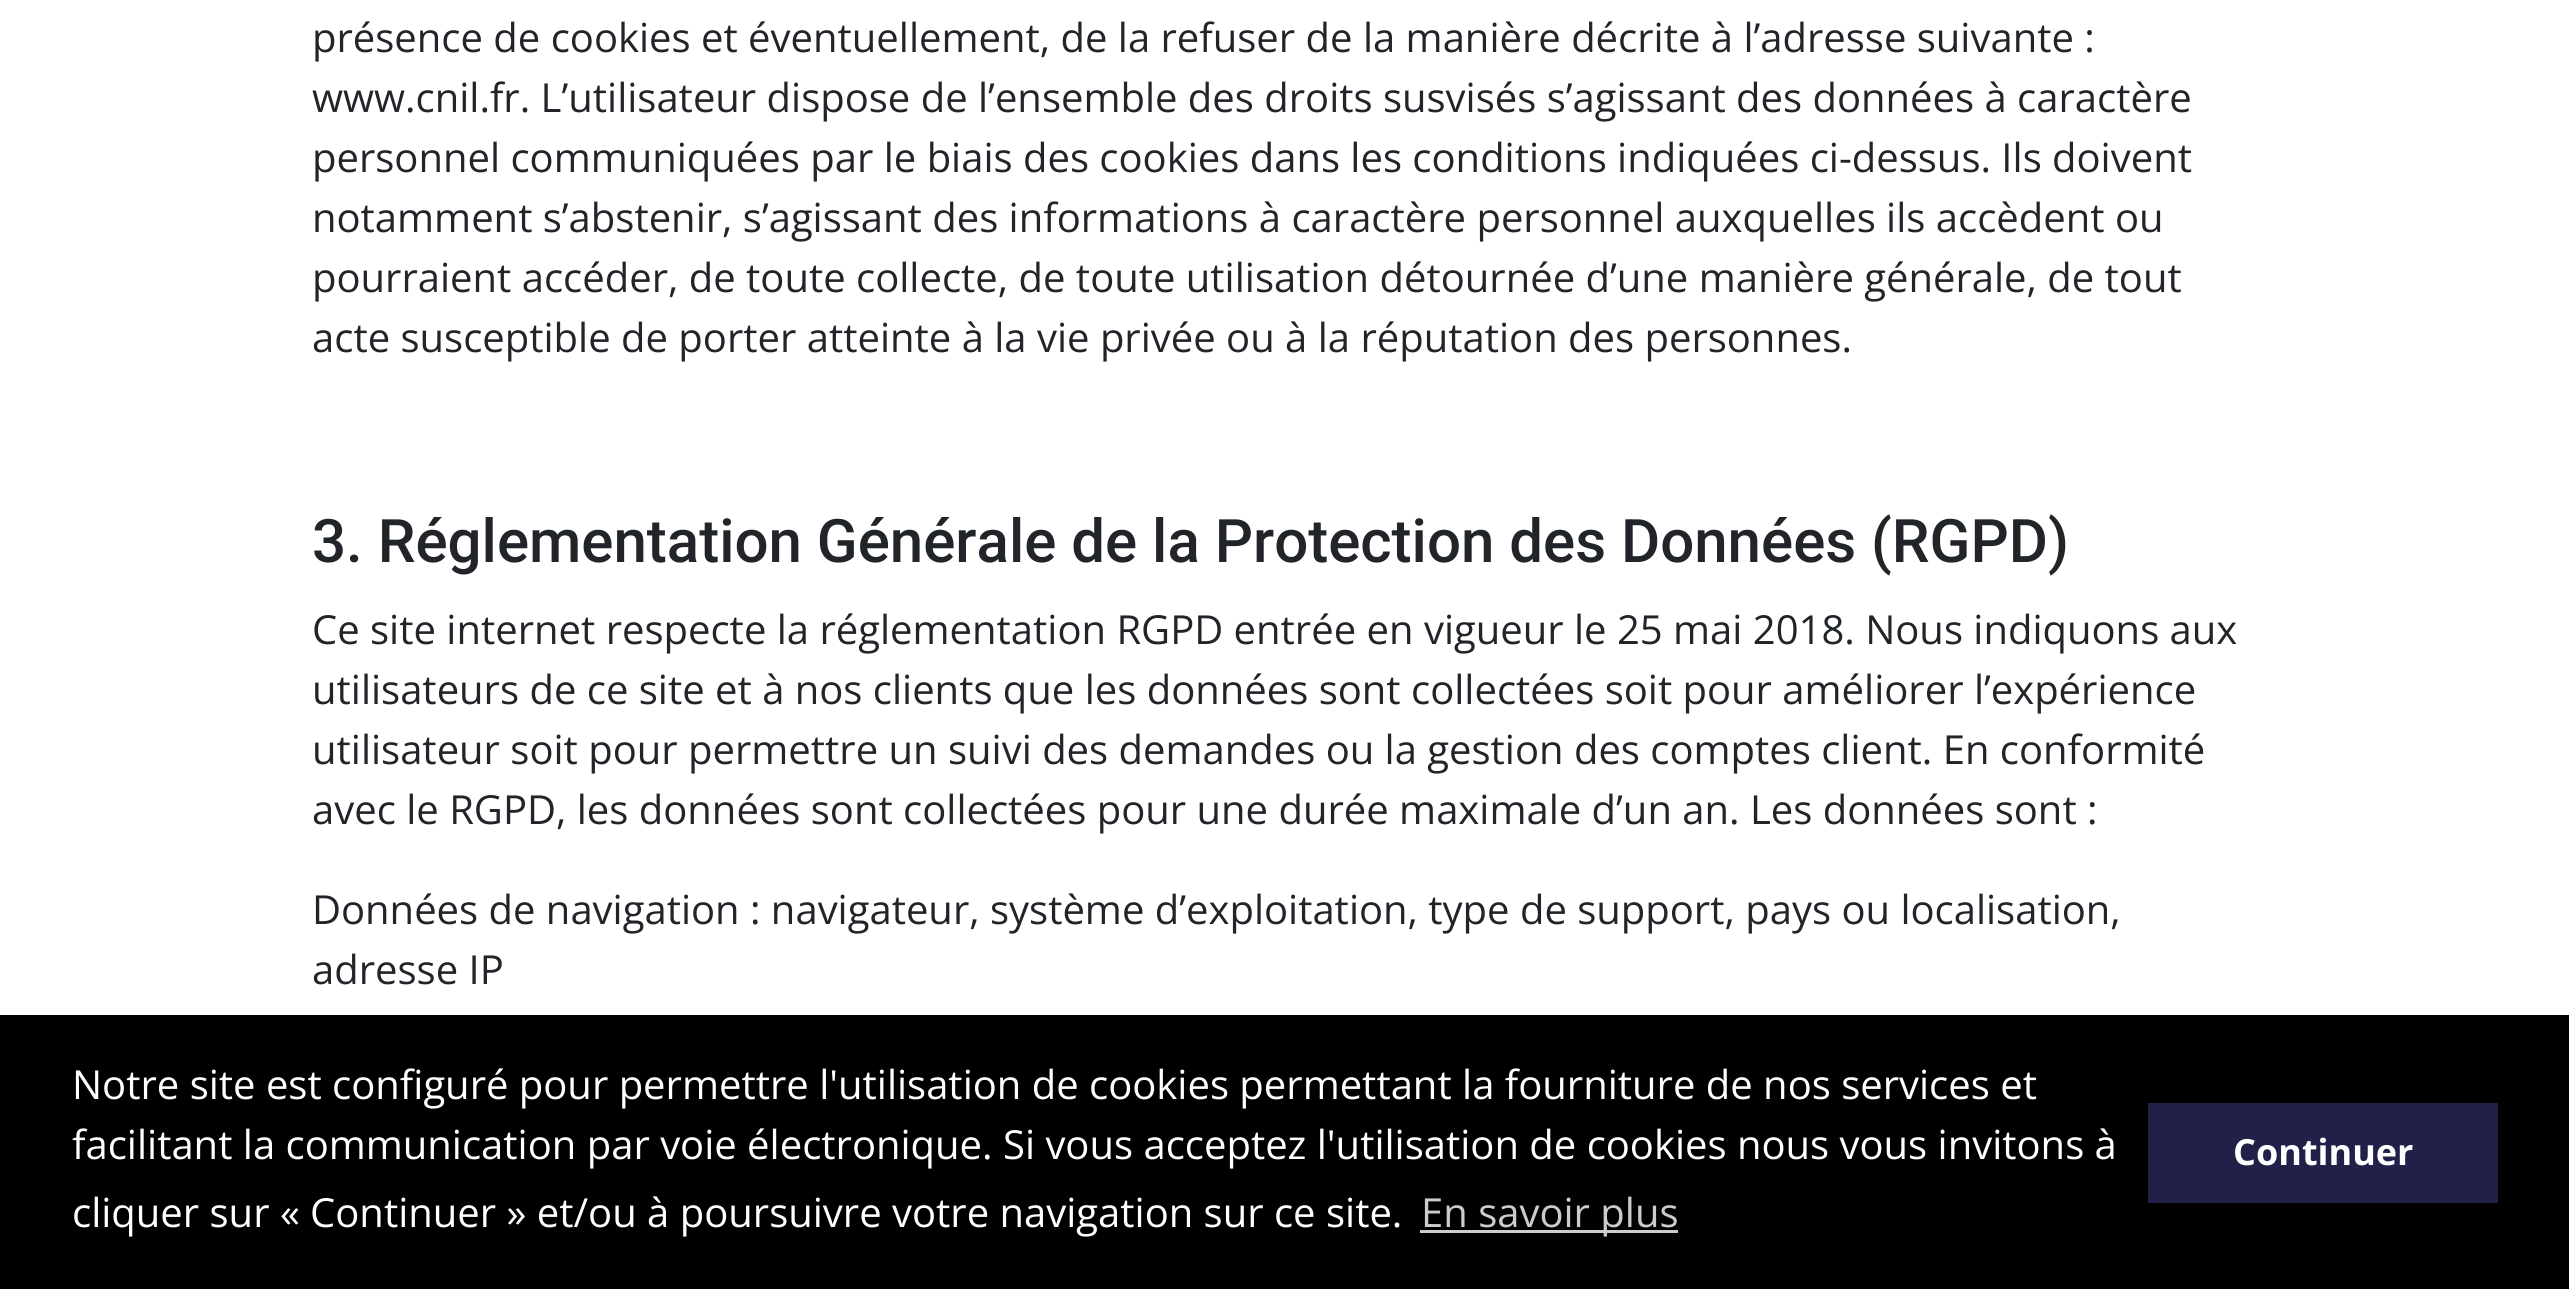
#include <cairo.h>
#include <math.h>
#include <stddef.h>

typedef struct { double x, y; const char *s; } line_t;

static void ink(cairo_t *ctx, unsigned color) {
    cairo_set_source_rgb(ctx, (color >> 16) / 255.0, (color >> 8 & 255) / 255.0, (color & 255) / 255.0);
}

int main(void) {
    cairo_surface_t *surface = cairo_image_surface_create(CAIRO_FORMAT_RGB24, 2569, 1289);
    cairo_t *ctx = cairo_create(surface);
    cairo_font_options_t *options = cairo_font_options_create();
    cairo_font_options_set_hint_metrics(options, CAIRO_HINT_METRICS_OFF);
    cairo_font_options_set_hint_style(options, CAIRO_HINT_STYLE_NONE);
    cairo_set_font_options(ctx, options);
    cairo_set_miter_limit(ctx, 4);
    ink(ctx, 0xFFFFFF);
    cairo_paint(ctx);
    cairo_select_font_face(ctx, "Open Sans", CAIRO_FONT_SLANT_NORMAL, CAIRO_FONT_WEIGHT_NORMAL);
    cairo_set_font_size(ctx, 40);
    ink(ctx, 0x212529);
    {
        static const line_t items[] = {
            {312, 52, "présence de cookies et éventuellement, de la refuser de la manière décrite à l’adresse suivante :"},
            {312, 112, "www.cnil.fr. L’utilisateur dispose de l’ensemble des droits susvisés s’agissant des données à caractère"},
            {312, 172, "personnel communiquées par le biais des cookies dans les conditions indiquées ci-dessus. Ils doivent"},
            {312, 232, "notamment s’abstenir, s’agissant des informations à caractère personnel auxquelles ils accèdent ou"},
            {312, 292, "pourraient accéder, de toute collecte, de toute utilisation détournée d’une manière générale, de tout"},
            {312, 352, "acte susceptible de porter atteinte à la vie privée ou à la réputation des personnes."},
        };
        for (size_t i = 0; i < sizeof items / sizeof *items; i++) {
            cairo_move_to(ctx, items[i].x, items[i].y);
            cairo_show_text(ctx, items[i].s);
        }
    }
    cairo_select_font_face(ctx, "Roboto Medium", CAIRO_FONT_SLANT_NORMAL, CAIRO_FONT_WEIGHT_NORMAL);
    cairo_set_font_size(ctx, 60);
    cairo_move_to(ctx, 312, 562);
    cairo_show_text(ctx, "3. Réglementation Générale de la Protection des Données (RGPD)");
    cairo_select_font_face(ctx, "Open Sans", CAIRO_FONT_SLANT_NORMAL, CAIRO_FONT_WEIGHT_NORMAL);
    cairo_set_font_size(ctx, 40);
    {
        static const line_t items[] = {
            {312, 644, "Ce site internet respecte la réglementation RGPD entrée en vigueur le 25 mai 2018. Nous indiquons aux"},
            {312, 704, "utilisateurs de ce site et à nos clients que les données sont collectées soit pour améliorer l’expérience"},
            {312, 764, "utilisateur soit pour permettre un suivi des demandes ou la gestion des comptes client. En conformité"},
            {312, 824, "avec le RGPD, les données sont collectées pour une durée maximale d’un an. Les données sont :"},
            {312, 924, "Données de navigation : navigateur, système d’exploitation, type de support, pays ou localisation,"},
            {312, 984, "adresse IP"},
        };
        for (size_t i = 0; i < sizeof items / sizeof *items; i++) {
            cairo_move_to(ctx, items[i].x, items[i].y);
            cairo_show_text(ctx, items[i].s);
        }
    }
    ink(ctx, 0x000000);
    cairo_rectangle(ctx, 0, 1015, 2569, 274);
    cairo_fill(ctx);
    ink(ctx, 0xFFFFFF);
    {
        static const line_t items[] = {
            {72, 1099, "Notre site est configuré pour permettre l'utilisation de cookies permettant la fourniture de nos services et"},
            {72, 1159, "facilitant la communication par voie électronique. Si vous acceptez l'utilisation de cookies nous vous invitons à"},
            {72, 1227, "cliquer sur « Continuer » et/ou à poursuivre votre navigation sur ce site."},
        };
        for (size_t i = 0; i < sizeof items / sizeof *items; i++) {
            cairo_move_to(ctx, items[i].x, items[i].y);
            cairo_show_text(ctx, items[i].s);
        }
    }
    ink(ctx, 0xCCCCCC);
    cairo_rectangle(ctx, 1420, 1230, 258, 3);
    cairo_fill(ctx);
    cairo_move_to(ctx, 1421, 1227);
    cairo_show_text(ctx, "En savoir plus");
    ink(ctx, 0x202048);
    cairo_rectangle(ctx, 2148, 1103, 350, 100);
    cairo_fill(ctx);
    cairo_select_font_face(ctx, "Open Sans", CAIRO_FONT_SLANT_NORMAL, CAIRO_FONT_WEIGHT_BOLD);
    cairo_set_font_size(ctx, 36);
    ink(ctx, 0xFFFFFF);
    cairo_move_to(ctx, 2233, 1165);
    cairo_show_text(ctx, "Continuer");
    cairo_surface_write_to_png(surface, "image.png");
    cairo_font_options_destroy(options);
    cairo_destroy(ctx);
    cairo_surface_destroy(surface);
    return 0;
}
